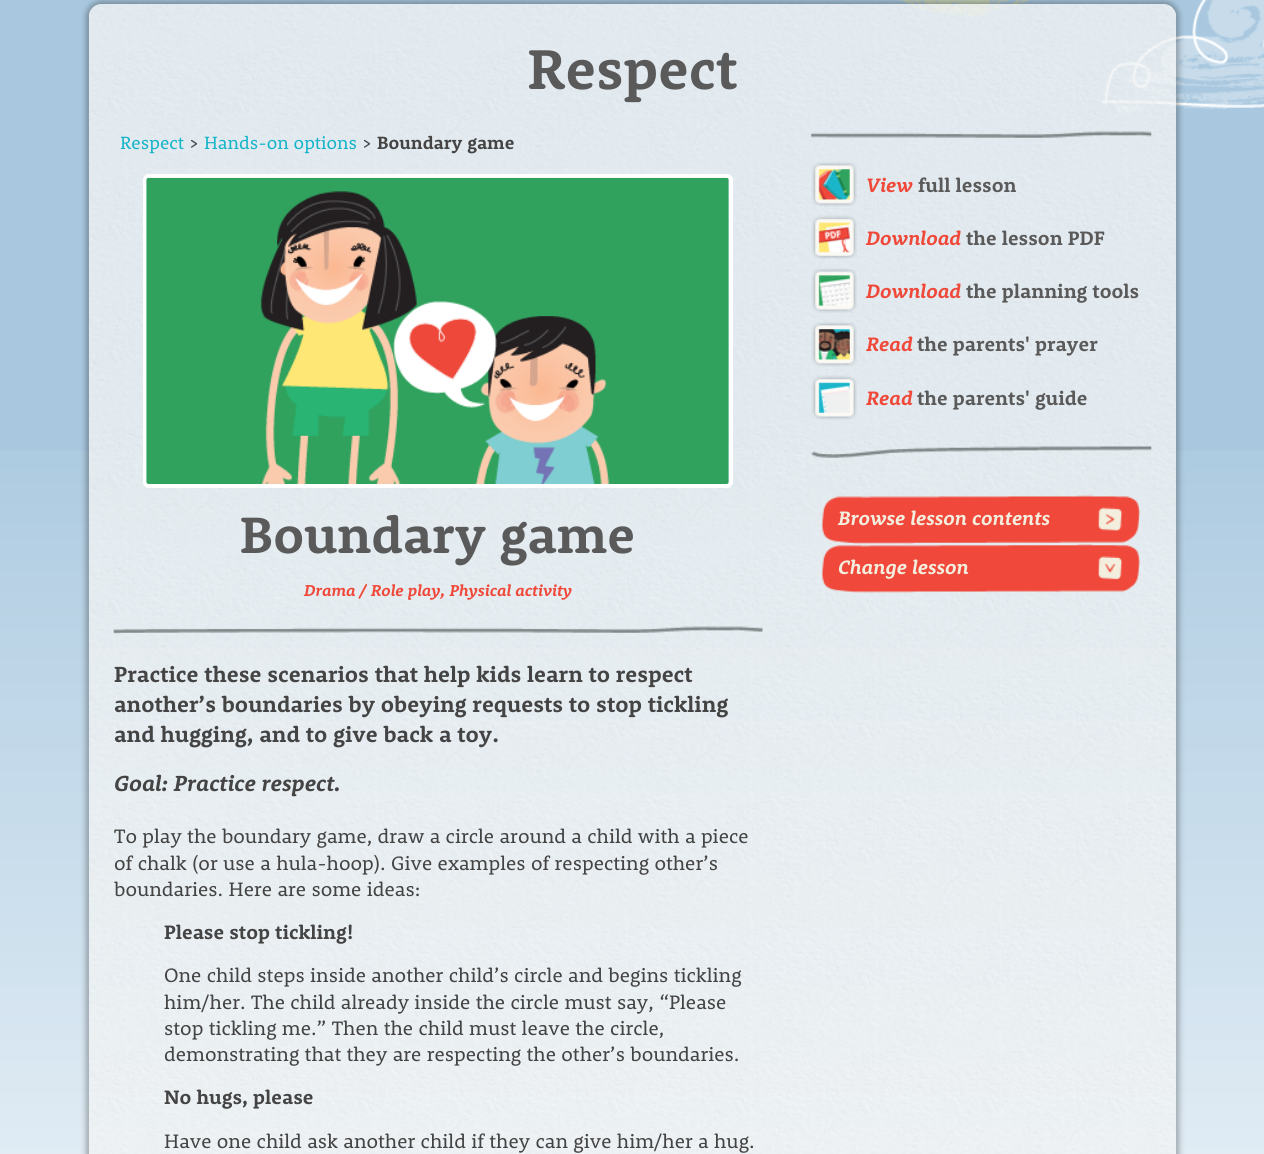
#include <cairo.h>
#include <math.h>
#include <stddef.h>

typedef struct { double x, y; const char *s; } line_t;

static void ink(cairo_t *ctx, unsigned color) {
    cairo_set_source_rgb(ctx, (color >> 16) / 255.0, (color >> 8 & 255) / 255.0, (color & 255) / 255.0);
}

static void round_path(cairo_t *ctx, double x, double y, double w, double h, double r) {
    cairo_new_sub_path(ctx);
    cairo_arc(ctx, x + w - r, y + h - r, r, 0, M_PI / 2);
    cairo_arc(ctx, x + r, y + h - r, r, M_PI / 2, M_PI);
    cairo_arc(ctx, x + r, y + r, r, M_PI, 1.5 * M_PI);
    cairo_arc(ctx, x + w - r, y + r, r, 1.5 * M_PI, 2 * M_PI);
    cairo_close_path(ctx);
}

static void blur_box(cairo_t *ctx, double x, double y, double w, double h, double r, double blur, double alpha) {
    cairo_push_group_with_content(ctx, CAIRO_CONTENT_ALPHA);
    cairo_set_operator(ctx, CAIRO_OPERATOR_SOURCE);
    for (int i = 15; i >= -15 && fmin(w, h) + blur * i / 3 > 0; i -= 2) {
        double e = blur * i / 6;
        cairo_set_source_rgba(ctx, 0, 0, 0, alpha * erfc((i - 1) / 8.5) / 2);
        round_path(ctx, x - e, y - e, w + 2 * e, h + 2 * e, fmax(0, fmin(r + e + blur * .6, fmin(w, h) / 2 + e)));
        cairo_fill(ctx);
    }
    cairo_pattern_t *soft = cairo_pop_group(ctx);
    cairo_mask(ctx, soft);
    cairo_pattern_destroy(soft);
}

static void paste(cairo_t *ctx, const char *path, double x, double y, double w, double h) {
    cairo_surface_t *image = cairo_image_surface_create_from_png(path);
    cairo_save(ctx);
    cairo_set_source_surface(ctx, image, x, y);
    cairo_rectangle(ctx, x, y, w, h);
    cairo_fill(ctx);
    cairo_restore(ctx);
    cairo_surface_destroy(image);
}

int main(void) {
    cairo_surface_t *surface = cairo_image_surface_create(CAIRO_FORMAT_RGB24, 1264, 1154);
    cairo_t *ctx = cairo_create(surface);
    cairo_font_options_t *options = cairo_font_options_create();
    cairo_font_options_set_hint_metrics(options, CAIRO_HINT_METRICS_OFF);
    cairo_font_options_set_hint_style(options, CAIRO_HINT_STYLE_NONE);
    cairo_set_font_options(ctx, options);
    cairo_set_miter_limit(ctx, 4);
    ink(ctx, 0xA9C8DF);
    cairo_paint(ctx);
    paste(ctx, "media/1.png", 0, 451, 1264, 703);
    paste(ctx, "media/2.png", 900, 0, 130, 18);
    paste(ctx, "media/3.png", 1101, 0, 163, 113);
    cairo_save(ctx);
    cairo_set_fill_rule(ctx, CAIRO_FILL_RULE_EVEN_ODD);
    cairo_new_path(ctx);
    cairo_move_to(ctx, 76, 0);
    cairo_line_to(ctx, 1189, 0);
    cairo_line_to(ctx, 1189, 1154);
    cairo_line_to(ctx, 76, 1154);
    cairo_close_path(ctx);
    cairo_move_to(ctx, 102, 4);
    cairo_line_to(ctx, 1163, 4);
    cairo_curve_to(ctx, 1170, 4, 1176, 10, 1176, 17);
    cairo_line_to(ctx, 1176, 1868);
    cairo_curve_to(ctx, 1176, 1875, 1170, 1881, 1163, 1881);
    cairo_line_to(ctx, 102, 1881);
    cairo_curve_to(ctx, 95, 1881, 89, 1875, 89, 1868);
    cairo_line_to(ctx, 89, 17);
    cairo_curve_to(ctx, 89, 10, 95, 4, 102, 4);
    cairo_close_path(ctx);
    cairo_clip(ctx);
    ink(ctx, 0x000000);
    blur_box(ctx, 86, 1, 1093, 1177, 15, 3, 0.3);
    cairo_restore(ctx);
    paste(ctx, "media/4.png", 88, 4, 1089, 1150);
    cairo_select_font_face(ctx, "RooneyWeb", CAIRO_FONT_SLANT_NORMAL, CAIRO_FONT_WEIGHT_BOLD);
    cairo_set_font_size(ctx, 57.5);
    ink(ctx, 0x5A5A5A);
    cairo_move_to(ctx, 527, 89);
    cairo_show_text(ctx, "Respect");
    paste(ctx, "media/5.png", 113, 626, 650, 8);
    cairo_select_font_face(ctx, "RooneyWeb", CAIRO_FONT_SLANT_NORMAL, CAIRO_FONT_WEIGHT_NORMAL);
    cairo_set_font_size(ctx, 18.25);
    ink(ctx, 0x16B4C9);
    cairo_move_to(ctx, 120, 149);
    cairo_show_text(ctx, "Respect");
    ink(ctx, 0x444444);
    cairo_move_to(ctx, 189, 149);
    cairo_show_text(ctx, ">");
    ink(ctx, 0x16B4C9);
    cairo_move_to(ctx, 204, 149);
    cairo_show_text(ctx, "Hands-on options");
    ink(ctx, 0x444444);
    cairo_move_to(ctx, 362, 149);
    cairo_show_text(ctx, ">");
    cairo_select_font_face(ctx, "RooneyWeb", CAIRO_FONT_SLANT_NORMAL, CAIRO_FONT_WEIGHT_BOLD);
    cairo_move_to(ctx, 377, 149);
    cairo_show_text(ctx, "Boundary game");
    round_path(ctx, 145, 176, 586, 310, 4);
    ink(ctx, 0xFFFFFF);
    cairo_set_line_width(ctx, 4);
    cairo_stroke(ctx);
    paste(ctx, "media/6.png", 146, 177, 583, 307);
    cairo_set_font_size(ctx, 52.5);
    ink(ctx, 0x5A5A5A);
    cairo_move_to(ctx, 240, 553);
    cairo_show_text(ctx, "Boundary game");
    cairo_select_font_face(ctx, "RooneyWeb", CAIRO_FONT_SLANT_ITALIC, CAIRO_FONT_WEIGHT_BOLD);
    cairo_set_font_size(ctx, 16.25);
    ink(ctx, 0xF0493A);
    cairo_move_to(ctx, 304, 596);
    cairo_show_text(ctx, "Drama / Role play, Physical activity");
    cairo_select_font_face(ctx, "RooneyWeb", CAIRO_FONT_SLANT_NORMAL, CAIRO_FONT_WEIGHT_BOLD);
    cairo_set_font_size(ctx, 22.5);
    ink(ctx, 0x444444);
    {
        static const line_t items[] = {
            {114, 682, "Practice these scenarios that help kids learn to respect"},
            {114, 712, "another’s boundaries by obeying requests to stop tickling"},
            {114, 742, "and hugging, and to give back a toy."},
        };
        for (size_t i = 0; i < sizeof items / sizeof *items; i++) {
            cairo_move_to(ctx, items[i].x, items[i].y);
            cairo_show_text(ctx, items[i].s);
        }
    }
    cairo_select_font_face(ctx, "RooneyWeb", CAIRO_FONT_SLANT_ITALIC, CAIRO_FONT_WEIGHT_BOLD);
    cairo_move_to(ctx, 114, 791);
    cairo_show_text(ctx, "Goal: Practice respect.");
    cairo_select_font_face(ctx, "RooneyWeb", CAIRO_FONT_SLANT_NORMAL, CAIRO_FONT_WEIGHT_NORMAL);
    cairo_set_font_size(ctx, 20);
    {
        static const line_t items[] = {
            {114, 843, "To play the boundary game, draw a circle around a child with a piece"},
            {114, 870, "of chalk (or use a hula-hoop). Give examples of respecting other’s"},
            {114, 896, "boundaries. Here are some ideas:"},
        };
        for (size_t i = 0; i < sizeof items / sizeof *items; i++) {
            cairo_move_to(ctx, items[i].x, items[i].y);
            cairo_show_text(ctx, items[i].s);
        }
    }
    cairo_select_font_face(ctx, "RooneyWeb", CAIRO_FONT_SLANT_NORMAL, CAIRO_FONT_WEIGHT_BOLD);
    cairo_move_to(ctx, 164, 939);
    cairo_show_text(ctx, "Please stop tickling!");
    cairo_select_font_face(ctx, "RooneyWeb", CAIRO_FONT_SLANT_NORMAL, CAIRO_FONT_WEIGHT_NORMAL);
    {
        static const line_t items[] = {
            {164, 982, "One child steps inside another child’s circle and begins tickling"},
            {164, 1009, "him/her. The child already inside the circle must say, “Please"},
            {164, 1035, "stop tickling me.” Then the child must leave the circle,"},
            {164, 1061, "demonstrating that they are respecting the other’s boundaries."},
        };
        for (size_t i = 0; i < sizeof items / sizeof *items; i++) {
            cairo_move_to(ctx, items[i].x, items[i].y);
            cairo_show_text(ctx, items[i].s);
        }
    }
    cairo_select_font_face(ctx, "RooneyWeb", CAIRO_FONT_SLANT_NORMAL, CAIRO_FONT_WEIGHT_BOLD);
    cairo_move_to(ctx, 164, 1104);
    cairo_show_text(ctx, "No hugs, please");
    cairo_select_font_face(ctx, "RooneyWeb", CAIRO_FONT_SLANT_NORMAL, CAIRO_FONT_WEIGHT_NORMAL);
    cairo_move_to(ctx, 164, 1148);
    cairo_show_text(ctx, "Have one child ask another child if they can give him/her a hug.");
    paste(ctx, "media/7.png", 811, 131, 341, 7);
    paste(ctx, "media/8.png", 811, 446, 341, 12);
    paste(ctx, "media/9.png", 811, 162, 46, 45);
    cairo_select_font_face(ctx, "RooneyWeb", CAIRO_FONT_SLANT_ITALIC, CAIRO_FONT_WEIGHT_BOLD);
    ink(ctx, 0xF0493A);
    cairo_move_to(ctx, 866, 192);
    cairo_show_text(ctx, "View");
    cairo_select_font_face(ctx, "RooneyWeb", CAIRO_FONT_SLANT_NORMAL, CAIRO_FONT_WEIGHT_BOLD);
    ink(ctx, 0x5A5A5A);
    cairo_move_to(ctx, 918, 192);
    cairo_show_text(ctx, "full lesson");
    paste(ctx, "media/10.png", 811, 215, 46, 44);
    cairo_select_font_face(ctx, "RooneyWeb", CAIRO_FONT_SLANT_ITALIC, CAIRO_FONT_WEIGHT_BOLD);
    ink(ctx, 0xF0493A);
    cairo_move_to(ctx, 866, 245);
    cairo_show_text(ctx, "Download");
    cairo_select_font_face(ctx, "RooneyWeb", CAIRO_FONT_SLANT_NORMAL, CAIRO_FONT_WEIGHT_BOLD);
    ink(ctx, 0x5A5A5A);
    cairo_move_to(ctx, 966, 245);
    cairo_show_text(ctx, "the lesson PDF");
    paste(ctx, "media/11.png", 811, 268, 46, 45);
    cairo_select_font_face(ctx, "RooneyWeb", CAIRO_FONT_SLANT_ITALIC, CAIRO_FONT_WEIGHT_BOLD);
    ink(ctx, 0xF0493A);
    cairo_move_to(ctx, 866, 298);
    cairo_show_text(ctx, "Download");
    cairo_select_font_face(ctx, "RooneyWeb", CAIRO_FONT_SLANT_NORMAL, CAIRO_FONT_WEIGHT_BOLD);
    ink(ctx, 0x5A5A5A);
    cairo_move_to(ctx, 966, 298);
    cairo_show_text(ctx, "the planning tools");
    paste(ctx, "media/12.png", 811, 322, 46, 45);
    cairo_select_font_face(ctx, "RooneyWeb", CAIRO_FONT_SLANT_ITALIC, CAIRO_FONT_WEIGHT_BOLD);
    ink(ctx, 0xF0493A);
    cairo_move_to(ctx, 866, 351);
    cairo_show_text(ctx, "Read");
    cairo_select_font_face(ctx, "RooneyWeb", CAIRO_FONT_SLANT_NORMAL, CAIRO_FONT_WEIGHT_BOLD);
    ink(ctx, 0x5A5A5A);
    cairo_move_to(ctx, 917, 351);
    cairo_show_text(ctx, "the parents' prayer");
    paste(ctx, "media/13.png", 811, 375, 46, 45);
    cairo_select_font_face(ctx, "RooneyWeb", CAIRO_FONT_SLANT_ITALIC, CAIRO_FONT_WEIGHT_BOLD);
    ink(ctx, 0xF0493A);
    cairo_move_to(ctx, 866, 405);
    cairo_show_text(ctx, "Read");
    cairo_select_font_face(ctx, "RooneyWeb", CAIRO_FONT_SLANT_NORMAL, CAIRO_FONT_WEIGHT_BOLD);
    ink(ctx, 0x5A5A5A);
    cairo_move_to(ctx, 917, 405);
    cairo_show_text(ctx, "the parents' guide");
    paste(ctx, "media/14.png", 821, 495, 319, 49);
    cairo_select_font_face(ctx, "RooneyWeb", CAIRO_FONT_SLANT_ITALIC, CAIRO_FONT_WEIGHT_BOLD);
    ink(ctx, 0xF3EEDE);
    cairo_move_to(ctx, 838, 525);
    cairo_show_text(ctx, "Browse lesson contents");
    paste(ctx, "media/15.png", 821, 544, 319, 49);
    cairo_move_to(ctx, 838, 574);
    cairo_show_text(ctx, "Change lesson");
    cairo_surface_write_to_png(surface, "image.png");
    cairo_font_options_destroy(options);
    cairo_destroy(ctx);
    cairo_surface_destroy(surface);
    return 0;
}
